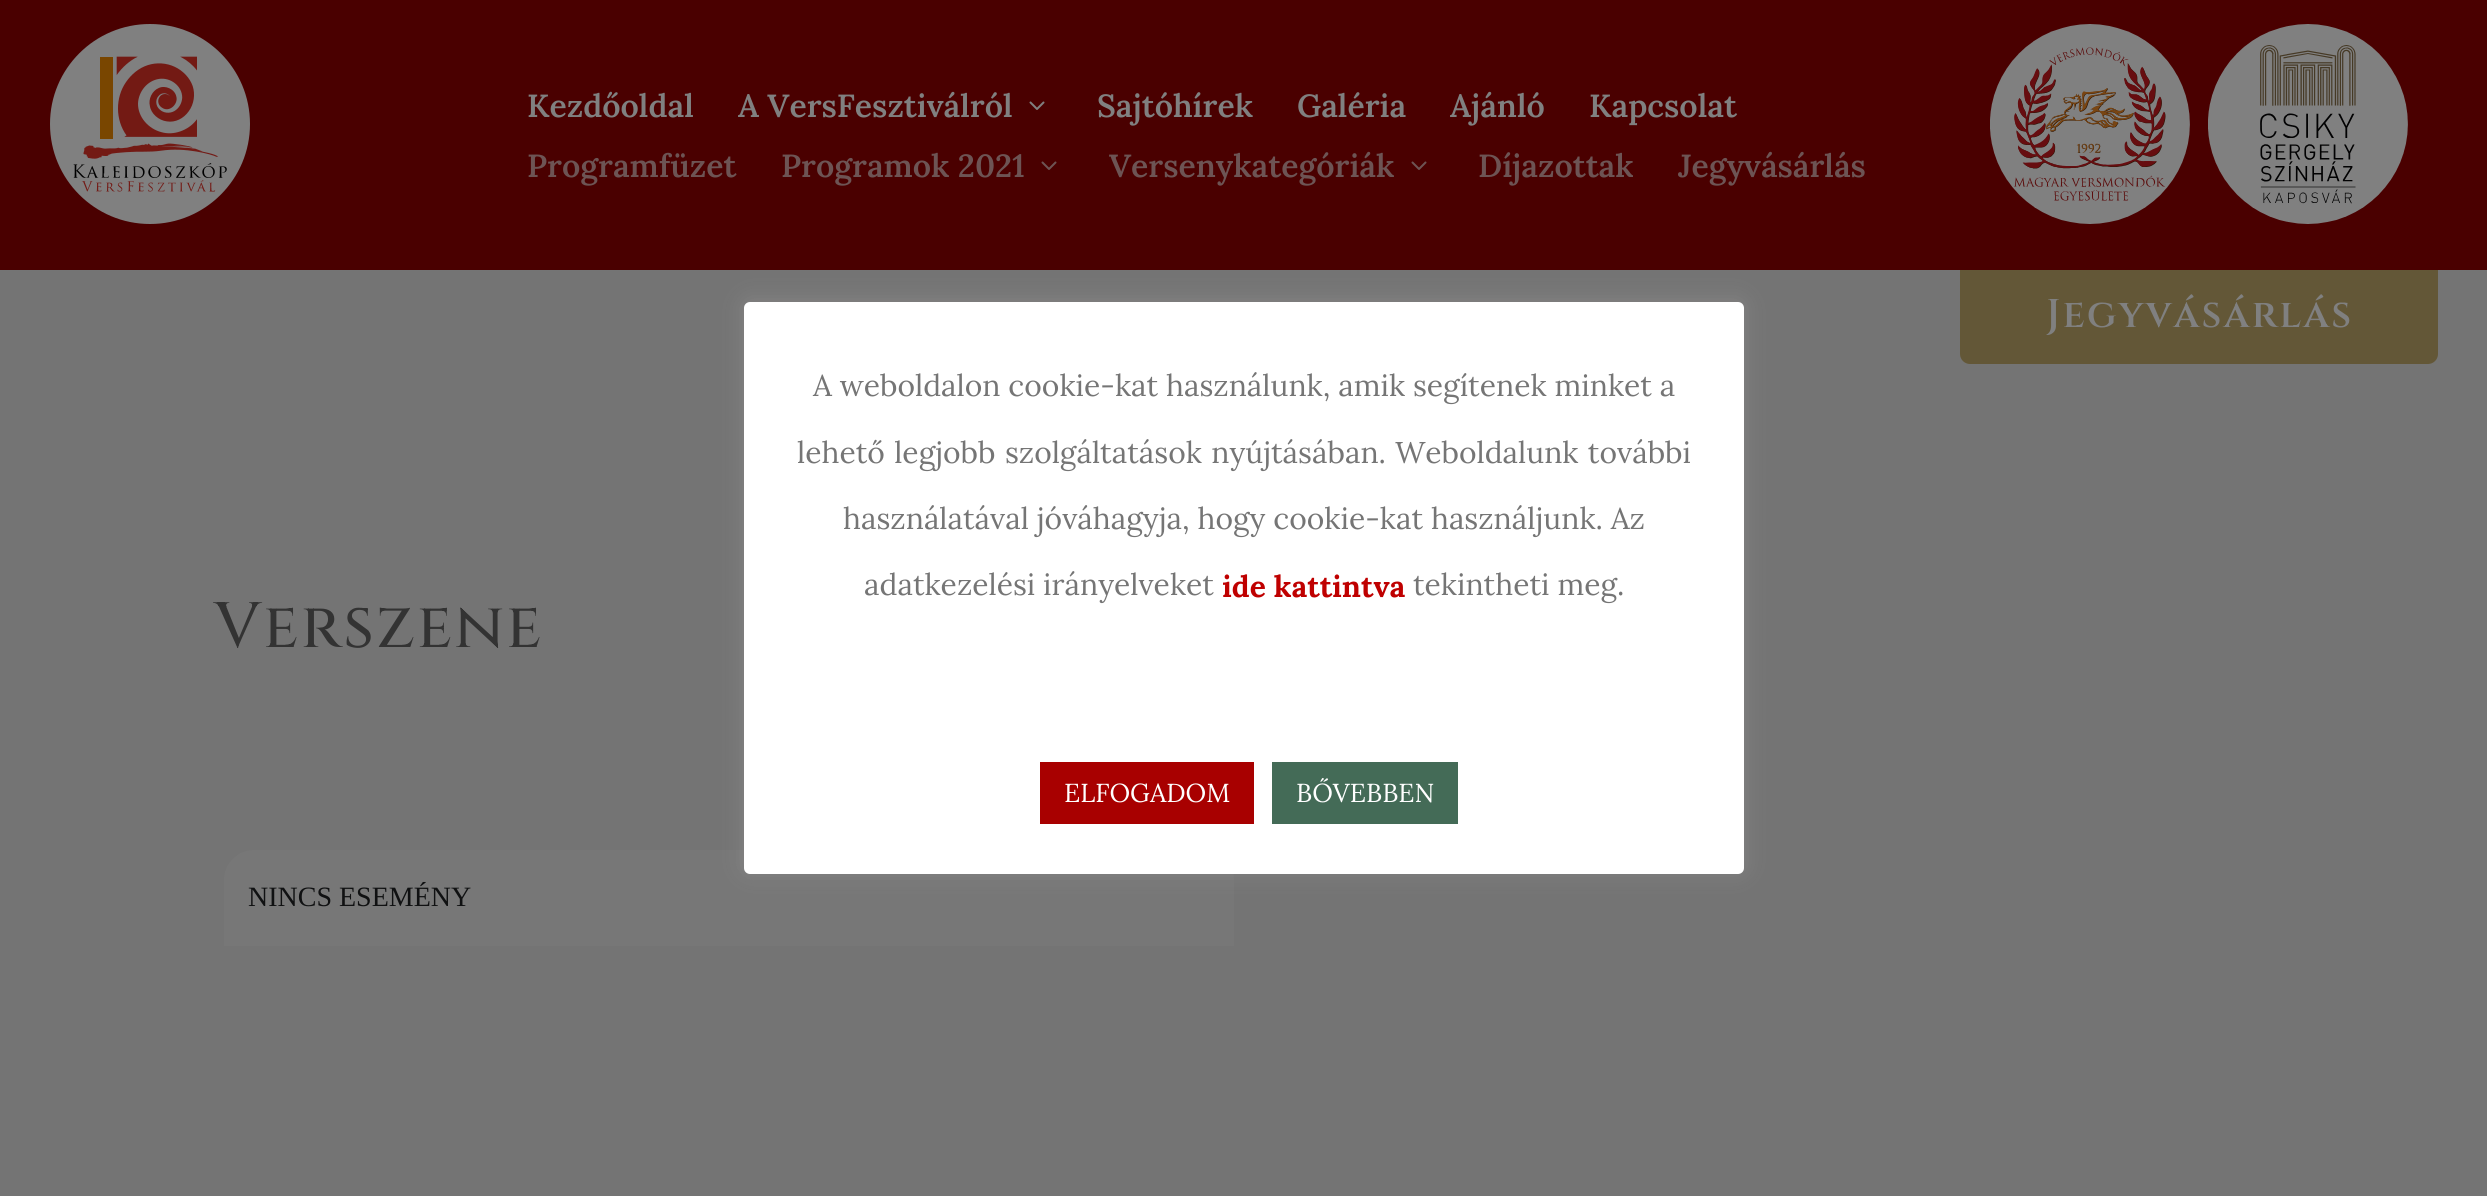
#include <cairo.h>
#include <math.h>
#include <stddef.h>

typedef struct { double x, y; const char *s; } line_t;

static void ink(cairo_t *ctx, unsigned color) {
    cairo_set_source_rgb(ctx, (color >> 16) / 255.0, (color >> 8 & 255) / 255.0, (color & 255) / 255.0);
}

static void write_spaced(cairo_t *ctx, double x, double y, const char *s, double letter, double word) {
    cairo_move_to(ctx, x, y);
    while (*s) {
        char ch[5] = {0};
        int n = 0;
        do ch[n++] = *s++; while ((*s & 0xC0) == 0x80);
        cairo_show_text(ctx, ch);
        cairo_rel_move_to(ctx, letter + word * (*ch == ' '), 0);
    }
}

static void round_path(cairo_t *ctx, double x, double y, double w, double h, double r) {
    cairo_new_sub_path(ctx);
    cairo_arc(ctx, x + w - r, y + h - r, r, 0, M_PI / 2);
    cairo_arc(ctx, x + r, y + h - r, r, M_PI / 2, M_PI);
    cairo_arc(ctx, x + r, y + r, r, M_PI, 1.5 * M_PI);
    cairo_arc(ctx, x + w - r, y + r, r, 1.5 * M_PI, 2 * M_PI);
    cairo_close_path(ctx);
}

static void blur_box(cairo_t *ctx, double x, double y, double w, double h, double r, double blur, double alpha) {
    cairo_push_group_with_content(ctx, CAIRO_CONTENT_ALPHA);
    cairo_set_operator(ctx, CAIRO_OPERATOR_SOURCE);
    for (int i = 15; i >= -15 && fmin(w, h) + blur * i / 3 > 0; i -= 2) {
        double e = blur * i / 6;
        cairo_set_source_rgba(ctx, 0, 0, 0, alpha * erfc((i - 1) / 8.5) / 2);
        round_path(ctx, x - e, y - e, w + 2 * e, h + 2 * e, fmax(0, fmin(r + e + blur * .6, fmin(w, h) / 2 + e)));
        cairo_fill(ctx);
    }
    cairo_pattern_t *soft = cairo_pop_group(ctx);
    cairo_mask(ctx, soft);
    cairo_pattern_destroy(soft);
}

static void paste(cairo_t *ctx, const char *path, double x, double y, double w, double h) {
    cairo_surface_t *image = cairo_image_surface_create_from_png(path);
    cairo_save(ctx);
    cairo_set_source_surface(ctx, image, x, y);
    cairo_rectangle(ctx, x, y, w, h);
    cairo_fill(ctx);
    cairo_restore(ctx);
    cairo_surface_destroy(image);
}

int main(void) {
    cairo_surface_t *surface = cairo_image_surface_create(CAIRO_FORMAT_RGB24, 2487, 1196);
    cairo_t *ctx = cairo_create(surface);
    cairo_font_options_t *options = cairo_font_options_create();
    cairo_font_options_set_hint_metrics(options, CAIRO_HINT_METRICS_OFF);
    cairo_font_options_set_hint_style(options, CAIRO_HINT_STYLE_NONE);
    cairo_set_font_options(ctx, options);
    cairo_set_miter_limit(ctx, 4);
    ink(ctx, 0x747474);
    cairo_paint(ctx);
    ink(ctx, 0x4A0000);
    cairo_rectangle(ctx, 0, 0, 2487, 270);
    cairo_fill(ctx);
    paste(ctx, "media/1.png", 50, 24, 200, 200);
    cairo_select_font_face(ctx, "Lora SemiBold", CAIRO_FONT_SLANT_NORMAL, CAIRO_FONT_WEIGHT_NORMAL);
    cairo_set_font_size(ctx, 32);
    ink(ctx, 0x808080);
    cairo_move_to(ctx, 527, 117);
    cairo_show_text(ctx, "Kezdőoldal");
    cairo_move_to(ctx, 738, 117);
    cairo_show_text(ctx, "A VersFesztiválról");
    paste(ctx, "media/2.png", 1029, 101, 16, 9);
    {
        static const line_t items[] = {
            {1097, 117, "Sajtóhírek"},
            {1297, 117, "Galéria"},
            {1450, 117, "Ajánló"},
            {1589, 117, "Kapcsolat"},
        };
        for (size_t i = 0; i < sizeof items / sizeof *items; i++) {
            cairo_move_to(ctx, items[i].x, items[i].y);
            cairo_show_text(ctx, items[i].s);
        }
    }
    ink(ctx, 0x6D5454);
    cairo_move_to(ctx, 527, 177);
    cairo_show_text(ctx, "Programfüzet");
    cairo_move_to(ctx, 781, 177);
    cairo_show_text(ctx, "Programok 2021");
    paste(ctx, "media/3.png", 1041, 161, 16, 9);
    cairo_move_to(ctx, 1109, 177);
    cairo_show_text(ctx, "Versenykategóriák");
    paste(ctx, "media/3.png", 1411, 161, 16, 9);
    cairo_move_to(ctx, 1478, 177);
    cairo_show_text(ctx, "Díjazottak");
    cairo_move_to(ctx, 1678, 177);
    cairo_show_text(ctx, "Jegyvásárlás");
    paste(ctx, "media/4.png", 1990, 24, 200, 200);
    paste(ctx, "media/5.png", 2208, 24, 200, 200);
    ink(ctx, 0x635737);
    cairo_new_path(ctx);
    cairo_move_to(ctx, 1960, 270);
    cairo_line_to(ctx, 2438, 270);
    cairo_line_to(ctx, 2438, 354);
    cairo_curve_to(ctx, 2438, 359.5, 2433.5, 364, 2428, 364);
    cairo_line_to(ctx, 1970, 364);
    cairo_curve_to(ctx, 1964.5, 364, 1960, 359.5, 1960, 354);
    cairo_close_path(ctx);
    cairo_fill(ctx);
    cairo_select_font_face(ctx, "Cinzel SemiBold", CAIRO_FONT_SLANT_NORMAL, CAIRO_FONT_WEIGHT_NORMAL);
    cairo_set_font_size(ctx, 40);
    ink(ctx, 0x808080);
    write_spaced(ctx, 2046, 327, "Jegyvásárlás", 2, 0);
    cairo_select_font_face(ctx, "Cinzel Medium", CAIRO_FONT_SLANT_NORMAL, CAIRO_FONT_WEIGHT_NORMAL);
    cairo_set_font_size(ctx, 64);
    ink(ctx, 0x333333);
    write_spaced(ctx, 214, 647, "Verszene", 2, 0);
    ink(ctx, 0x777777);
    cairo_new_path(ctx);
    cairo_move_to(ctx, 254, 850);
    cairo_line_to(ctx, 1204, 850);
    cairo_curve_to(ctx, 1220.5, 850, 1234, 863.5, 1234, 880);
    cairo_line_to(ctx, 1234, 946);
    cairo_line_to(ctx, 224, 946);
    cairo_line_to(ctx, 224, 880);
    cairo_curve_to(ctx, 224, 863.5, 237.5, 850, 254, 850);
    cairo_close_path(ctx);
    cairo_fill(ctx);
    cairo_select_font_face(ctx, "Liberation Serif", CAIRO_FONT_SLANT_NORMAL, CAIRO_FONT_WEIGHT_NORMAL);
    cairo_set_font_size(ctx, 28);
    ink(ctx, 0x101112);
    cairo_move_to(ctx, 248, 906);
    cairo_show_text(ctx, "NINCS ESEMÉNY");
    ink(ctx, 0xACABAB);
    blur_box(ctx, 744, 300, 1000, 572, 6, 10, 0.3);
    ink(ctx, 0xFFFFFF);
    round_path(ctx, 744, 302, 1000, 572, 6);
    cairo_fill(ctx);
    cairo_select_font_face(ctx, "Lora", CAIRO_FONT_SLANT_NORMAL, CAIRO_FONT_WEIGHT_NORMAL);
    cairo_set_font_size(ctx, 30);
    ink(ctx, 0x757575);
    cairo_move_to(ctx, 813, 396);
    cairo_show_text(ctx, "A weboldalon cookie-kat használunk, amik segítenek minket a");
    write_spaced(ctx, 797, 463, "lehető legjobb szolgáltatások nyújtásában. Weboldalunk további", 0, 1.5);
    cairo_move_to(ctx, 843, 529);
    cairo_show_text(ctx, "használatával jóváhagyja, hogy cookie-kat használjunk. Az");
    cairo_move_to(ctx, 864, 595);
    cairo_show_text(ctx, "adatkezelési irányelveket");
    cairo_select_font_face(ctx, "Lora", CAIRO_FONT_SLANT_NORMAL, CAIRO_FONT_WEIGHT_BOLD);
    ink(ctx, 0xBF0000);
    cairo_move_to(ctx, 1222, 597);
    cairo_show_text(ctx, "ide kattintva");
    cairo_select_font_face(ctx, "Lora", CAIRO_FONT_SLANT_NORMAL, CAIRO_FONT_WEIGHT_NORMAL);
    ink(ctx, 0x757575);
    cairo_move_to(ctx, 1413, 595);
    cairo_show_text(ctx, "tekintheti meg.");
    ink(ctx, 0xA80000);
    cairo_rectangle(ctx, 1040, 762, 214, 62);
    cairo_fill(ctx);
    cairo_set_font_size(ctx, 26);
    ink(ctx, 0xFFFFFF);
    cairo_move_to(ctx, 1064, 802);
    cairo_show_text(ctx, "ELFOGADOM");
    ink(ctx, 0x446B57);
    cairo_rectangle(ctx, 1272, 762, 186, 62);
    cairo_fill(ctx);
    ink(ctx, 0xFFFFFF);
    cairo_move_to(ctx, 1296, 802);
    cairo_show_text(ctx, "BŐVEBBEN");
    cairo_surface_write_to_png(surface, "image.png");
    cairo_font_options_destroy(options);
    cairo_destroy(ctx);
    cairo_surface_destroy(surface);
    return 0;
}
